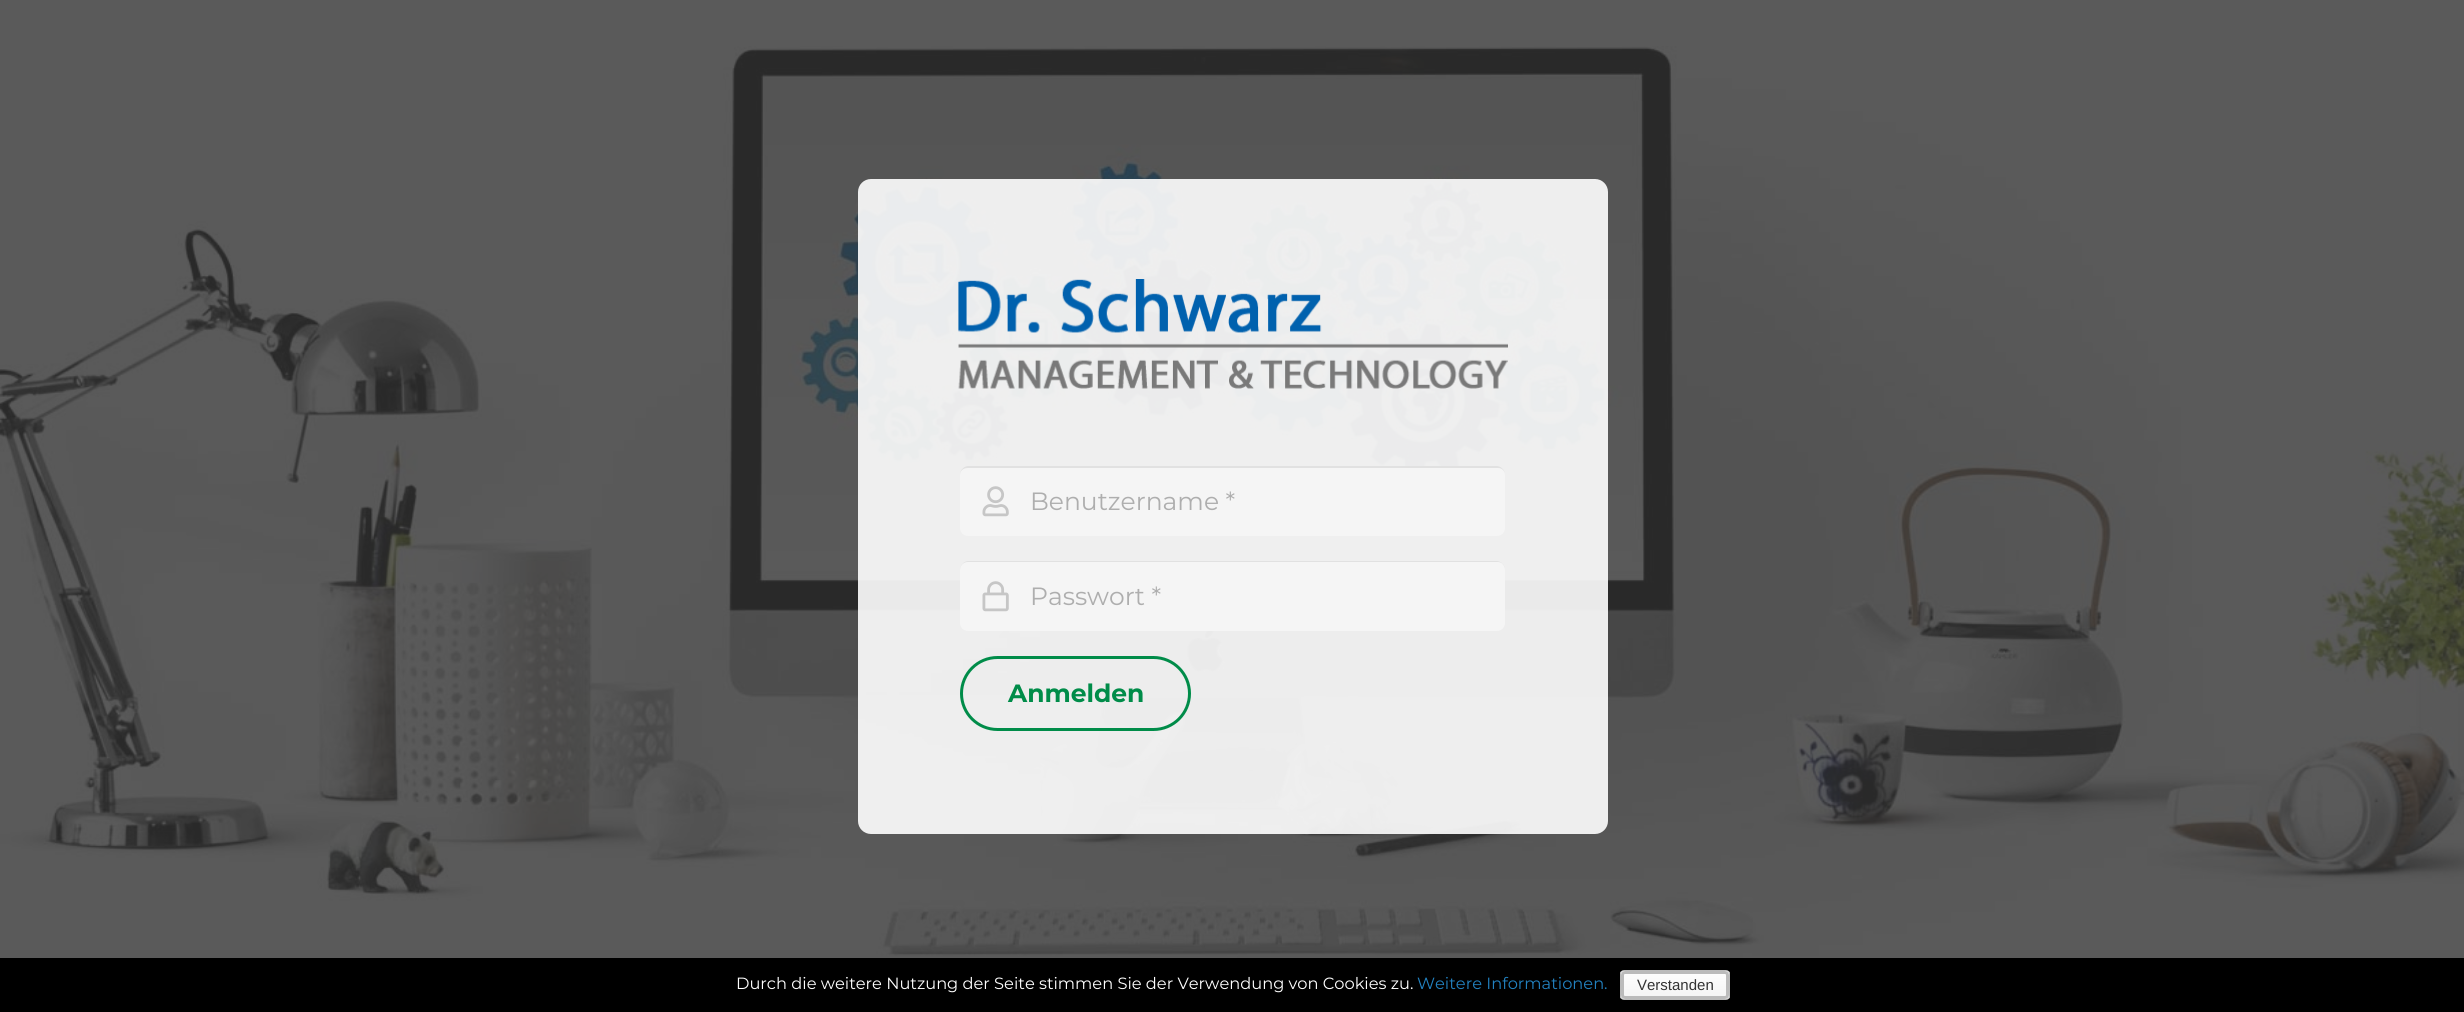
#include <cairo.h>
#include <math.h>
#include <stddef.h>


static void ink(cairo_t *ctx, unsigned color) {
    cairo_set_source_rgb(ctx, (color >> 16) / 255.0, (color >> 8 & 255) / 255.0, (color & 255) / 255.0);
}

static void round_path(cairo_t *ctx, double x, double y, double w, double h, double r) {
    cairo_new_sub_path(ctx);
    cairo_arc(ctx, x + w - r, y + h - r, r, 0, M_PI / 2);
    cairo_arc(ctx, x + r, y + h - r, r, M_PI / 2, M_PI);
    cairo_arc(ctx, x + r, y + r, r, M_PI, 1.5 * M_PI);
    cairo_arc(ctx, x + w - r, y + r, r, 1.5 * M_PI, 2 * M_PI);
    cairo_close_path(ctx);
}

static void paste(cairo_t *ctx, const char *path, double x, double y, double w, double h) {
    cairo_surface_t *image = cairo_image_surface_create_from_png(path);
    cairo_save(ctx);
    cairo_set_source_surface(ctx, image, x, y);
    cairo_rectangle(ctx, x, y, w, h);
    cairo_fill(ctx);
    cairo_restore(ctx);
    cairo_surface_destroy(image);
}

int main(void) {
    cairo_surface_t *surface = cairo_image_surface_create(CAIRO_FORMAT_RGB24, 2464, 1012);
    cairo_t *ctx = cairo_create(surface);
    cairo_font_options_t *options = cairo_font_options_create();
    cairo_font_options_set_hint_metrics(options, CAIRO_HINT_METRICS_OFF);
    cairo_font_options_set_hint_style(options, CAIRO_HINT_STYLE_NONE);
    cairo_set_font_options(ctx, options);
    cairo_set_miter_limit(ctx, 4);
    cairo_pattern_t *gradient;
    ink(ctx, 0x5A5A5A);
    cairo_paint(ctx);
    paste(ctx, "media/1.png", 0, 46, 2464, 912);
    cairo_set_source_rgba(ctx, 1, 1, 1, 0.9);
    round_path(ctx, 858, 179, 750, 655, 13);
    cairo_fill(ctx);
    paste(ctx, "media/2.png", 958, 279, 550, 110);
    ink(ctx, 0xF5F5F5);
    round_path(ctx, 960, 466, 545, 70, 8);
    cairo_fill(ctx);
    paste(ctx, "media/3.png", 982, 486, 27, 31);
    ink(ctx, 0xE1E1E1);
    cairo_new_path(ctx);
    cairo_move_to(ctx, 968, 468);
    cairo_line_to(ctx, 1498, 468);
    cairo_curve_to(ctx, 1502, 468, 1505, 471, 1505, 475);
    cairo_line_to(ctx, 1505, 474);
    cairo_curve_to(ctx, 1505, 470, 1501, 466, 1497, 466);
    cairo_line_to(ctx, 968, 466);
    cairo_curve_to(ctx, 964, 466, 960, 470, 960, 474);
    cairo_line_to(ctx, 960, 475);
    cairo_curve_to(ctx, 960, 471, 963, 468, 968, 468);
    cairo_close_path(ctx);
    cairo_fill(ctx);
    cairo_select_font_face(ctx, "Montserrat", CAIRO_FONT_SLANT_NORMAL, CAIRO_FONT_WEIGHT_NORMAL);
    cairo_set_font_size(ctx, 25);
    ink(ctx, 0xAEAEAE);
    cairo_move_to(ctx, 1030, 510);
    cairo_show_text(ctx, "Benutzername *");
    ink(ctx, 0xF5F5F5);
    round_path(ctx, 960, 561, 545, 70, 8);
    cairo_fill(ctx);
    paste(ctx, "media/4.png", 982, 581, 27, 31);
    ink(ctx, 0xE1E1E1);
    cairo_new_path(ctx);
    cairo_move_to(ctx, 968, 562);
    cairo_line_to(ctx, 1498, 562);
    cairo_curve_to(ctx, 1502, 562, 1505, 566, 1505, 570);
    cairo_line_to(ctx, 1505, 569);
    cairo_curve_to(ctx, 1505, 565, 1501, 561, 1497, 561);
    cairo_line_to(ctx, 968, 561);
    cairo_curve_to(ctx, 964, 561, 960, 565, 960, 569);
    cairo_line_to(ctx, 960, 570);
    cairo_curve_to(ctx, 960, 566, 963, 562, 968, 562);
    cairo_close_path(ctx);
    cairo_fill(ctx);
    ink(ctx, 0xAEAEAE);
    cairo_move_to(ctx, 1030, 605);
    cairo_show_text(ctx, "Passwort *");
    round_path(ctx, 961.5, 657.5, 228, 72, 36);
    ink(ctx, 0x008C49);
    cairo_set_line_width(ctx, 3);
    cairo_stroke(ctx);
    cairo_select_font_face(ctx, "Montserrat", CAIRO_FONT_SLANT_NORMAL, CAIRO_FONT_WEIGHT_BOLD);
    cairo_move_to(ctx, 1008, 702);
    cairo_show_text(ctx, "Anmelden");
    ink(ctx, 0x000000);
    cairo_rectangle(ctx, 0, 958, 2464, 54);
    cairo_fill(ctx);
    cairo_select_font_face(ctx, "Montserrat", CAIRO_FONT_SLANT_NORMAL, CAIRO_FONT_WEIGHT_NORMAL);
    cairo_set_font_size(ctx, 16.25);
    ink(ctx, 0xFFFFFF);
    cairo_move_to(ctx, 736, 989);
    cairo_show_text(ctx, "Durch die weitere Nutzung der Seite stimmen Sie der Verwendung von Cookies zu.");
    ink(ctx, 0x2282C1);
    cairo_move_to(ctx, 1417, 989);
    cairo_show_text(ctx, "Weitere Informationen.");
    cairo_save(ctx);
    round_path(ctx, 1620, 970, 110, 30, 4);
    cairo_clip(ctx);
    gradient = cairo_pattern_create_linear(1675, 971, 1675, 999);
    cairo_pattern_add_color_stop_rgba(gradient, 0, 0.996, 0.996, 0.996, 1);
    cairo_pattern_add_color_stop_rgba(gradient, 1, 0.957, 0.957, 0.957, 1);
    cairo_set_source(ctx, gradient);
    cairo_pattern_destroy(gradient);
    cairo_rectangle(ctx, 1620, 971, 110, 28);
    cairo_fill(ctx);
    cairo_restore(ctx);
    round_path(ctx, 1620.5, 970.5, 109, 29, 3.5);
    ink(ctx, 0xBBBBBB);
    cairo_set_line_width(ctx, 1);
    cairo_stroke(ctx);
    round_path(ctx, 1622.5, 972.5, 105, 25, 2.5);
    cairo_set_line_width(ctx, 3);
    cairo_stroke(ctx);
    cairo_select_font_face(ctx, "Liberation Sans", CAIRO_FONT_SLANT_NORMAL, CAIRO_FONT_WEIGHT_NORMAL);
    cairo_set_font_size(ctx, 15);
    ink(ctx, 0x333333);
    cairo_move_to(ctx, 1637, 990);
    cairo_show_text(ctx, "Verstanden");
    cairo_surface_write_to_png(surface, "image.png");
    cairo_font_options_destroy(options);
    cairo_destroy(ctx);
    cairo_surface_destroy(surface);
    return 0;
}
